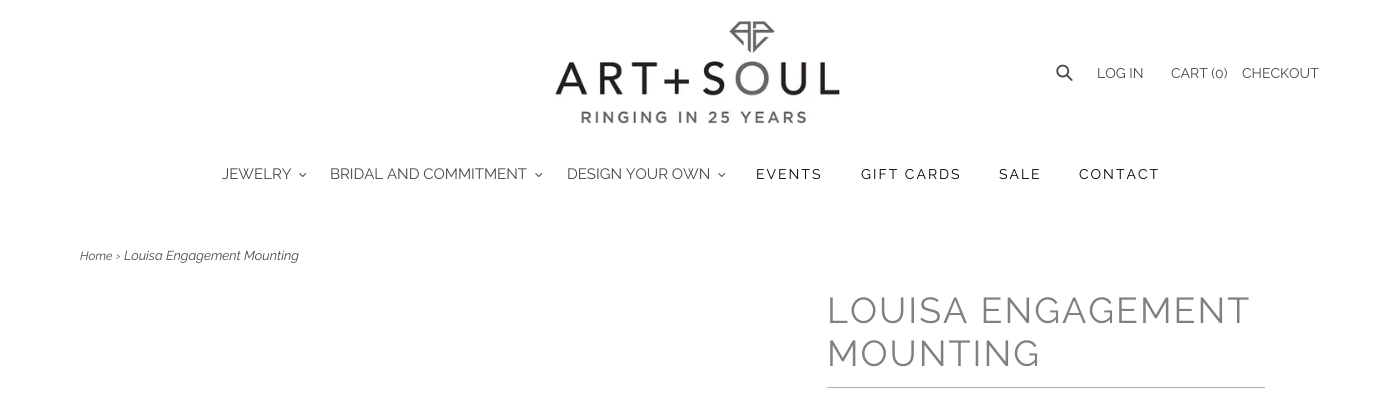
#include <cairo.h>
#include <math.h>
#include <stddef.h>

typedef struct { double x, y; const char *s; } line_t;

static void ink(cairo_t *ctx, unsigned color) {
    cairo_set_source_rgb(ctx, (color >> 16) / 255.0, (color >> 8 & 255) / 255.0, (color & 255) / 255.0);
}

static void write_spaced(cairo_t *ctx, double x, double y, const char *s, double letter, double word) {
    cairo_move_to(ctx, x, y);
    while (*s) {
        char ch[5] = {0};
        int n = 0;
        do ch[n++] = *s++; while ((*s & 0xC0) == 0x80);
        cairo_show_text(ctx, ch);
        cairo_rel_move_to(ctx, letter + word * (*ch == ' '), 0);
    }
}

static void paste(cairo_t *ctx, const char *path, double x, double y, double w, double h) {
    cairo_surface_t *image = cairo_image_surface_create_from_png(path);
    cairo_save(ctx);
    cairo_set_source_surface(ctx, image, x, y);
    cairo_rectangle(ctx, x, y, w, h);
    cairo_fill(ctx);
    cairo_restore(ctx);
    cairo_surface_destroy(image);
}

int main(void) {
    cairo_surface_t *surface = cairo_image_surface_create(CAIRO_FORMAT_RGB24, 1389, 418);
    cairo_t *ctx = cairo_create(surface);
    cairo_font_options_t *options = cairo_font_options_create();
    cairo_font_options_set_hint_metrics(options, CAIRO_HINT_METRICS_OFF);
    cairo_font_options_set_hint_style(options, CAIRO_HINT_STYLE_NONE);
    cairo_set_font_options(ctx, options);
    cairo_set_miter_limit(ctx, 4);
    ink(ctx, 0xFFFFFF);
    cairo_paint(ctx);
    paste(ctx, "media/1.png", 554, 20, 286, 104);
    paste(ctx, "media/2.png", 1056, 64, 17, 17);
    cairo_select_font_face(ctx, "Raleway", CAIRO_FONT_SLANT_NORMAL, CAIRO_FONT_WEIGHT_NORMAL);
    cairo_set_font_size(ctx, 14);
    ink(ctx, 0x474747);
    {
        static const line_t items[] = {
            {1097, 78, "LOG IN"},
            {1171, 78, "CART (0)"},
            {1242, 78, "CHECKOUT"},
        };
        for (size_t i = 0; i < sizeof items / sizeof *items; i++) {
            cairo_move_to(ctx, items[i].x, items[i].y);
            cairo_show_text(ctx, items[i].s);
        }
    }
    cairo_set_font_size(ctx, 15);
    cairo_move_to(ctx, 222, 179);
    cairo_show_text(ctx, "JEWELRY");
    paste(ctx, "media/3.png", 299, 173, 7, 4);
    cairo_move_to(ctx, 330, 179);
    cairo_show_text(ctx, "BRIDAL AND COMMITMENT");
    paste(ctx, "media/4.png", 535, 173, 8, 4);
    cairo_move_to(ctx, 567, 179);
    cairo_show_text(ctx, "DESIGN YOUR OWN");
    paste(ctx, "media/3.png", 718, 173, 7, 4);
    cairo_set_font_size(ctx, 14);
    ink(ctx, 0x000000);
    {
        static const line_t items[] = {
            {756, 179, "EVENTS"},
            {861, 179, "GIFT CARDS"},
            {999, 179, "SALE"},
            {1079, 179, "CONTACT"},
        };
        for (size_t i = 0; i < sizeof items / sizeof *items; i++) {
            write_spaced(ctx, items[i].x, items[i].y, items[i].s, 2, 0);
        }
    }
    cairo_select_font_face(ctx, "Raleway", CAIRO_FONT_SLANT_ITALIC, CAIRO_FONT_WEIGHT_NORMAL);
    cairo_set_font_size(ctx, 12);
    ink(ctx, 0x474747);
    cairo_move_to(ctx, 80, 260);
    cairo_show_text(ctx, "Home");
    cairo_set_font_size(ctx, 13);
    cairo_move_to(ctx, 116, 260);
    cairo_show_text(ctx, "›");
    cairo_move_to(ctx, 124, 260);
    cairo_show_text(ctx, "Louisa Engagement Mounting");
    ink(ctx, 0xAEAEB0);
    cairo_rectangle(ctx, 827, 387, 438, 1);
    cairo_fill(ctx);
    cairo_select_font_face(ctx, "Raleway", CAIRO_FONT_SLANT_NORMAL, CAIRO_FONT_WEIGHT_NORMAL);
    cairo_set_font_size(ctx, 36);
    ink(ctx, 0x808080);
    write_spaced(ctx, 827, 323, "LOUISA ENGAGEMENT", 2, 0);
    write_spaced(ctx, 827, 366, "MOUNTING", 2, 0);
    cairo_surface_write_to_png(surface, "image.png");
    cairo_font_options_destroy(options);
    cairo_destroy(ctx);
    cairo_surface_destroy(surface);
    return 0;
}
